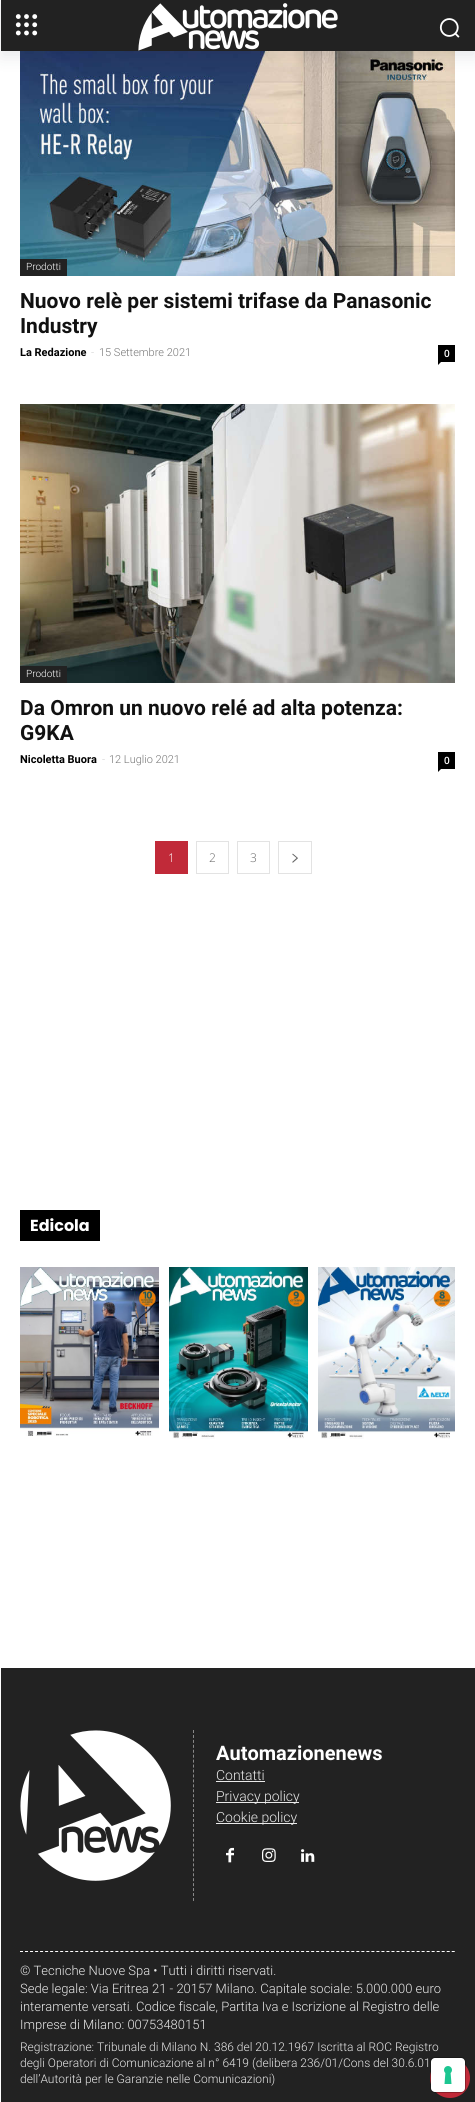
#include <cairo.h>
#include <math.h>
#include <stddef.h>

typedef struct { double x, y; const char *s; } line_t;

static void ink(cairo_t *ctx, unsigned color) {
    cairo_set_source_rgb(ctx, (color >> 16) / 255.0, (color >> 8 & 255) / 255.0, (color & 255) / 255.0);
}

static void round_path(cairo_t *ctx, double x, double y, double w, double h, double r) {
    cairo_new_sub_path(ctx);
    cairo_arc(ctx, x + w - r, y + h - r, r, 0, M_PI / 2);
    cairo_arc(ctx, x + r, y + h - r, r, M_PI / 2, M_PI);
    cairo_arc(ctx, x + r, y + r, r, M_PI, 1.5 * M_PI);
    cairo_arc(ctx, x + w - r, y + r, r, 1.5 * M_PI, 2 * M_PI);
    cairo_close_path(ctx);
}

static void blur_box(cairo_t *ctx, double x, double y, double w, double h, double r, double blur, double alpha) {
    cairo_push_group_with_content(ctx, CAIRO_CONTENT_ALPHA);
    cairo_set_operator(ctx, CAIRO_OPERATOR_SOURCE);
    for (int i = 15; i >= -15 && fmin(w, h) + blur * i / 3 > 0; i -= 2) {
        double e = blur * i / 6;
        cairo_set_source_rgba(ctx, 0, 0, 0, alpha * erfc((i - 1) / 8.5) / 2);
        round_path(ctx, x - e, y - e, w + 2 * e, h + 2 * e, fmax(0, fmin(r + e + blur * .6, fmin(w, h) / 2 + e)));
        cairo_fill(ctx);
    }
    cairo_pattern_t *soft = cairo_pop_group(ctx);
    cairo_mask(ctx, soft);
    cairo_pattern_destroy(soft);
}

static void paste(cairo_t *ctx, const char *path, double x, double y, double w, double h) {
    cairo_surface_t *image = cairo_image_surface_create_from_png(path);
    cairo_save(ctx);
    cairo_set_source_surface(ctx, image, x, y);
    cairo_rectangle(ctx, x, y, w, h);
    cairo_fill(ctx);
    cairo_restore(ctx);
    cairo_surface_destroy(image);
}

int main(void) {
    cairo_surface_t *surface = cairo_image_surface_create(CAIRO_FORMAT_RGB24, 475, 2102);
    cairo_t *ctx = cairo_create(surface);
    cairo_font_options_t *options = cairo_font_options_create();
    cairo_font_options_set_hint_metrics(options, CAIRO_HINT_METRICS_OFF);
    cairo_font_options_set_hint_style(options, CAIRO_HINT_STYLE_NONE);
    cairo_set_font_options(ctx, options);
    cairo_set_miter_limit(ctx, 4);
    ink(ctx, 0xFFFFFF);
    cairo_paint(ctx);
    ink(ctx, 0x222222);
    cairo_rectangle(ctx, 1, 0, 474, 51);
    cairo_fill(ctx);
    paste(ctx, "media/1.png", 15, 14, 23, 22);
    paste(ctx, "media/2.png", 138, 3, 200, 48);
    paste(ctx, "media/3.png", 439, 18, 21, 20);
    paste(ctx, "media/4.png", 20, 51, 435, 225);
    cairo_save(ctx);
    cairo_set_fill_rule(ctx, CAIRO_FILL_RULE_EVEN_ODD);
    cairo_new_path(ctx);
    cairo_move_to(ctx, 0, 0);
    cairo_line_to(ctx, 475, 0);
    cairo_line_to(ctx, 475, 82);
    cairo_line_to(ctx, 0, 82);
    cairo_close_path(ctx);
    cairo_move_to(ctx, 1, 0);
    cairo_line_to(ctx, 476, 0);
    cairo_line_to(ctx, 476, 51);
    cairo_line_to(ctx, 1, 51);
    cairo_close_path(ctx);
    cairo_clip(ctx);
    ink(ctx, 0x16233A);
    blur_box(ctx, 1, 6, 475, 51, 0, 8, 0.1);
    cairo_restore(ctx);
    cairo_rectangle(ctx, 20, 259, 47, 17);
    cairo_fill(ctx);
    cairo_select_font_face(ctx, "Roboto Light", CAIRO_FONT_SLANT_NORMAL, CAIRO_FONT_WEIGHT_NORMAL);
    cairo_set_font_size(ctx, 10);
    ink(ctx, 0xFFFFFF);
    cairo_move_to(ctx, 26, 270);
    cairo_show_text(ctx, "Prodotti");
    cairo_select_font_face(ctx, "Roboto", CAIRO_FONT_SLANT_NORMAL, CAIRO_FONT_WEIGHT_BOLD);
    cairo_set_font_size(ctx, 21);
    ink(ctx, 0x111111);
    cairo_move_to(ctx, 20, 308);
    cairo_show_text(ctx, "Nuovo relè per sistemi trifase da Panasonic");
    cairo_move_to(ctx, 20, 333);
    cairo_show_text(ctx, "Industry");
    cairo_set_font_size(ctx, 11);
    ink(ctx, 0x000000);
    cairo_move_to(ctx, 20, 356);
    cairo_show_text(ctx, "La Redazione");
    cairo_select_font_face(ctx, "Roboto Light", CAIRO_FONT_SLANT_NORMAL, CAIRO_FONT_WEIGHT_NORMAL);
    ink(ctx, 0xCCCCCC);
    cairo_move_to(ctx, 91, 356);
    cairo_show_text(ctx, "-");
    ink(ctx, 0x767676);
    cairo_move_to(ctx, 99, 356);
    cairo_show_text(ctx, "15 Settembre 2021");
    ink(ctx, 0x000000);
    cairo_rectangle(ctx, 438, 345, 17, 17);
    cairo_fill(ctx);
    cairo_select_font_face(ctx, "Open Sans SemiBold", CAIRO_FONT_SLANT_NORMAL, CAIRO_FONT_WEIGHT_NORMAL);
    cairo_set_font_size(ctx, 10);
    ink(ctx, 0xFFFFFF);
    cairo_move_to(ctx, 444, 357);
    cairo_show_text(ctx, "0");
    ink(ctx, 0x000000);
    cairo_new_path(ctx);
    cairo_move_to(ctx, 438, 362);
    cairo_line_to(ctx, 441, 362);
    cairo_line_to(ctx, 438, 365);
    cairo_close_path(ctx);
    cairo_fill(ctx);
    paste(ctx, "media/5.png", 20, 404, 435, 279);
    ink(ctx, 0x222222);
    cairo_rectangle(ctx, 20, 666, 47, 17);
    cairo_fill(ctx);
    cairo_select_font_face(ctx, "Roboto Light", CAIRO_FONT_SLANT_NORMAL, CAIRO_FONT_WEIGHT_NORMAL);
    ink(ctx, 0xFFFFFF);
    cairo_move_to(ctx, 26, 677);
    cairo_show_text(ctx, "Prodotti");
    cairo_select_font_face(ctx, "Roboto", CAIRO_FONT_SLANT_NORMAL, CAIRO_FONT_WEIGHT_BOLD);
    cairo_set_font_size(ctx, 21);
    ink(ctx, 0x111111);
    cairo_move_to(ctx, 20, 715);
    cairo_show_text(ctx, "Da Omron un nuovo relé ad alta potenza:");
    cairo_move_to(ctx, 20, 740);
    cairo_show_text(ctx, "G9KA");
    cairo_set_font_size(ctx, 11);
    ink(ctx, 0x000000);
    cairo_move_to(ctx, 20, 763);
    cairo_show_text(ctx, "Nicoletta Buora");
    cairo_select_font_face(ctx, "Roboto Light", CAIRO_FONT_SLANT_NORMAL, CAIRO_FONT_WEIGHT_NORMAL);
    ink(ctx, 0xCCCCCC);
    cairo_move_to(ctx, 102, 763);
    cairo_show_text(ctx, "-");
    ink(ctx, 0x767676);
    cairo_move_to(ctx, 109, 763);
    cairo_show_text(ctx, "12 Luglio 2021");
    ink(ctx, 0x000000);
    cairo_rectangle(ctx, 438, 752, 17, 17);
    cairo_fill(ctx);
    cairo_select_font_face(ctx, "Open Sans SemiBold", CAIRO_FONT_SLANT_NORMAL, CAIRO_FONT_WEIGHT_NORMAL);
    cairo_set_font_size(ctx, 10);
    ink(ctx, 0xFFFFFF);
    cairo_move_to(ctx, 444, 764);
    cairo_show_text(ctx, "0");
    ink(ctx, 0x000000);
    cairo_new_path(ctx);
    cairo_move_to(ctx, 438, 769);
    cairo_line_to(ctx, 441, 769);
    cairo_line_to(ctx, 438, 772);
    cairo_close_path(ctx);
    cairo_fill(ctx);
    ink(ctx, 0xC12A39);
    cairo_rectangle(ctx, 155, 841, 33, 33);
    cairo_fill(ctx);
    cairo_select_font_face(ctx, "Open Sans Light", CAIRO_FONT_SLANT_NORMAL, CAIRO_FONT_WEIGHT_NORMAL);
    cairo_set_font_size(ctx, 12);
    ink(ctx, 0xFFFFFF);
    cairo_move_to(ctx, 168, 862);
    cairo_show_text(ctx, "1");
    cairo_rectangle(ctx, 196.5, 841.5, 32, 32);
    ink(ctx, 0xE3E3E3);
    cairo_set_line_width(ctx, 1);
    cairo_stroke(ctx);
    ink(ctx, 0x666666);
    cairo_move_to(ctx, 209, 862);
    cairo_show_text(ctx, "2");
    cairo_rectangle(ctx, 237.5, 841.5, 32, 32);
    ink(ctx, 0xE3E3E3);
    cairo_stroke(ctx);
    ink(ctx, 0x666666);
    cairo_move_to(ctx, 250, 862);
    cairo_show_text(ctx, "3");
    cairo_rectangle(ctx, 278.5, 841.5, 33, 32);
    ink(ctx, 0xE3E3E3);
    cairo_stroke(ctx);
    paste(ctx, "media/6.png", 292, 853, 6, 10);
    ink(ctx, 0x000000);
    cairo_rectangle(ctx, 20, 1210, 80, 31);
    cairo_fill(ctx);
    cairo_select_font_face(ctx, "Poppins", CAIRO_FONT_SLANT_NORMAL, CAIRO_FONT_WEIGHT_BOLD);
    cairo_set_font_size(ctx, 16);
    ink(ctx, 0xFFFFFF);
    cairo_move_to(ctx, 30, 1231);
    cairo_show_text(ctx, "Edicola");
    paste(ctx, "media/7.png", 20, 1267, 139, 169);
    paste(ctx, "media/8.png", 169, 1267, 139, 172);
    paste(ctx, "media/9.png", 318, 1267, 137, 172);
    ink(ctx, 0x222222);
    cairo_rectangle(ctx, 1, 1668, 474, 434);
    cairo_fill(ctx);
    cairo_new_path(ctx);
    cairo_move_to(ctx, 193.5, 1730);
    cairo_line_to(ctx, 193.5, 1901);
    ink(ctx, 0x888888);
    cairo_set_dash(ctx, (double[]){3, 1.94}, 2, 0);
    cairo_stroke(ctx);
    paste(ctx, "media/10.png", 20, 1730, 151, 151);
    cairo_select_font_face(ctx, "Roboto", CAIRO_FONT_SLANT_NORMAL, CAIRO_FONT_WEIGHT_BOLD);
    cairo_set_font_size(ctx, 20);
    ink(ctx, 0xFFFFFF);
    cairo_move_to(ctx, 216, 1760);
    cairo_show_text(ctx, "Automazionenews");
    cairo_select_font_face(ctx, "Roboto Light", CAIRO_FONT_SLANT_NORMAL, CAIRO_FONT_WEIGHT_NORMAL);
    cairo_set_font_size(ctx, 14);
    ink(ctx, 0xEAEAEA);
    cairo_move_to(ctx, 216, 1780);
    cairo_show_text(ctx, "Contatti");
    cairo_rectangle(ctx, 216, 1781, 49, 1);
    cairo_fill(ctx);
    cairo_rectangle(ctx, 216, 1802, 83, 1);
    cairo_fill(ctx);
    cairo_move_to(ctx, 216, 1801);
    cairo_show_text(ctx, "Privacy policy");
    cairo_rectangle(ctx, 216, 1823, 81, 1);
    cairo_fill(ctx);
    cairo_move_to(ctx, 216, 1822);
    cairo_show_text(ctx, "Cookie policy");
    paste(ctx, "media/11.png", 226, 1847, 8, 16);
    paste(ctx, "media/12.png", 262, 1848, 14, 14);
    paste(ctx, "media/13.png", 301, 1849, 14, 13);
    cairo_new_path(ctx);
    cairo_move_to(ctx, 20, 1951.5);
    cairo_line_to(ctx, 455, 1951.5);
    ink(ctx, 0xFFFFFF);
    cairo_set_dash(ctx, (double[]){3, 2.02}, 2, 0);
    cairo_stroke(ctx);
    cairo_set_font_size(ctx, 13);
    ink(ctx, 0xEAEAEA);
    {
        static const line_t items[] = {
            {20, 1975, "© Tecniche Nuove Spa • Tutti i diritti riservati."},
            {20, 1993, "Sede legale: Via Eritrea 21 - 20157 Milano. Capitale sociale: 5.000.000 euro"},
            {20, 2011, "interamente versati. Codice fiscale, Partita Iva e Iscrizione al Registro delle"},
            {20, 2029, "Imprese di Milano: 00753480151"},
        };
        for (size_t i = 0; i < sizeof items / sizeof *items; i++) {
            cairo_move_to(ctx, items[i].x, items[i].y);
            cairo_show_text(ctx, items[i].s);
        }
    }
    cairo_set_font_size(ctx, 12);
    {
        static const line_t items[] = {
            {20, 2051, "Registrazione: Tribunale di Milano N. 386 del 20.12.1967 Iscritta al ROC Registro"},
            {20, 2067, "degli Operatori di Comunicazione al n° 6419 (delibera 236/01/Cons del 30.6.01"},
            {20, 2083, "dell’Autorità per le Garanzie nelle Comunicazioni)"},
        };
        for (size_t i = 0; i < sizeof items / sizeof *items; i++) {
            cairo_move_to(ctx, items[i].x, items[i].y);
            cairo_show_text(ctx, items[i].s);
        }
    }
    ink(ctx, 0xC12A39);
    cairo_new_path(ctx);
    cairo_arc(ctx, 450, 2078, 20, 0, 2 * M_PI);
    cairo_fill(ctx);
    round_path(ctx, 430.5, 2057.5, 35, 35, 4.5);
    cairo_set_source_rgba(ctx, 0, 0, 0, 0.15);
    cairo_set_dash(ctx, NULL, 0, 0);
    cairo_stroke(ctx);
    round_path(ctx, 430.5, 2057.5, 35, 35, 4.5);
    cairo_stroke(ctx);
    ink(ctx, 0xFFFFFF);
    round_path(ctx, 431, 2058, 34, 34, 4);
    cairo_fill(ctx);
    paste(ctx, "media/14.png", 444, 2066, 8, 18);
    cairo_surface_write_to_png(surface, "image.png");
    cairo_font_options_destroy(options);
    cairo_destroy(ctx);
    cairo_surface_destroy(surface);
    return 0;
}
